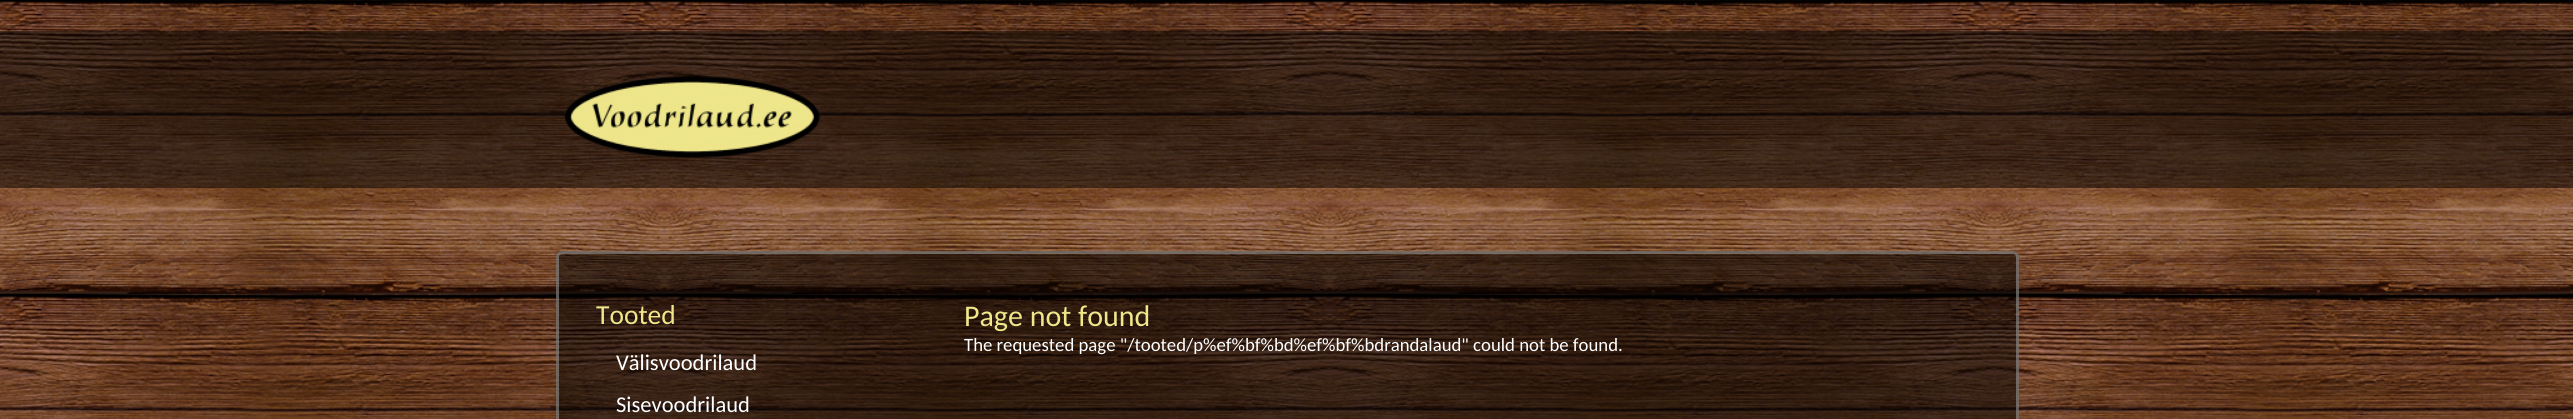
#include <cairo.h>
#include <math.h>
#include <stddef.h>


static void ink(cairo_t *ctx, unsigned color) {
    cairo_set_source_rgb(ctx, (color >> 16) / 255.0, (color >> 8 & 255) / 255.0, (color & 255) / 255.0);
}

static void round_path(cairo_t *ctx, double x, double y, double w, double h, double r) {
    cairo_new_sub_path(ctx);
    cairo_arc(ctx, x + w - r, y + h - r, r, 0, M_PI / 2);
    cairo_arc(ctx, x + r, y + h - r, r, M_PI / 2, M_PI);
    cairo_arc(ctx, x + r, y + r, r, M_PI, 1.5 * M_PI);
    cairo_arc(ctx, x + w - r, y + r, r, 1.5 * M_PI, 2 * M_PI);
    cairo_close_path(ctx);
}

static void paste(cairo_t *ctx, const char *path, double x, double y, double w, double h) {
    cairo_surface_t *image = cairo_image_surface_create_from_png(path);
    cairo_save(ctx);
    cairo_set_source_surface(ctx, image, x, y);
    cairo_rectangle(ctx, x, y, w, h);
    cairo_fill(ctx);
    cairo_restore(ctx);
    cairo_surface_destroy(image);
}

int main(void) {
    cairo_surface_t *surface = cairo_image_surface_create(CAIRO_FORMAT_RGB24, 2573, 419);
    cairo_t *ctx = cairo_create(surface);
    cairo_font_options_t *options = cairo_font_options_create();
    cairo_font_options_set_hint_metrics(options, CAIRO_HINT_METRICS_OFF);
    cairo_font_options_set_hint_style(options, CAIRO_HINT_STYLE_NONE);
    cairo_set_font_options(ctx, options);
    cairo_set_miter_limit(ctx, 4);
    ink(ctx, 0xFFFFFF);
    cairo_paint(ctx);
    paste(ctx, "media/1.png", 0, 0, 2573, 419);
    cairo_set_source_rgba(ctx, 0, 0, 0, 0.5);
    cairo_rectangle(ctx, 0, 31, 2573, 157);
    cairo_fill(ctx);
    paste(ctx, "media/2.png", 565, 76, 255, 82);
    round_path(ctx, 556, 251, 1463, 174, 6);
    cairo_fill(ctx);
    round_path(ctx, 557.5, 252.5, 1460, 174, 4.5);
    cairo_set_source_rgba(ctx, 0.686, 0.686, 0.675, 0.5);
    cairo_set_line_width(ctx, 3);
    cairo_stroke(ctx);
    cairo_select_font_face(ctx, "Carlito", CAIRO_FONT_SLANT_NORMAL, CAIRO_FONT_WEIGHT_NORMAL);
    cairo_set_font_size(ctx, 27.5);
    ink(ctx, 0xEFE78A);
    cairo_move_to(ctx, 596, 324);
    cairo_show_text(ctx, "Tooted");
    cairo_set_font_size(ctx, 22.5);
    ink(ctx, 0xFFFFFF);
    cairo_move_to(ctx, 616, 370);
    cairo_show_text(ctx, "Välisvoodrilaud");
    cairo_move_to(ctx, 616, 412);
    cairo_show_text(ctx, "Sisevoodrilaud");
    cairo_set_font_size(ctx, 30);
    ink(ctx, 0xEFE78A);
    cairo_move_to(ctx, 964, 326);
    cairo_show_text(ctx, "Page not found");
    cairo_set_font_size(ctx, 18.75);
    ink(ctx, 0xFFFFFF);
    cairo_move_to(ctx, 964, 351);
    cairo_show_text(ctx, "The requested page \"/tooted/p%ef%bf%bd%ef%bf%bdrandalaud\" could not be found.");
    cairo_surface_write_to_png(surface, "image.png");
    cairo_font_options_destroy(options);
    cairo_destroy(ctx);
    cairo_surface_destroy(surface);
    return 0;
}
